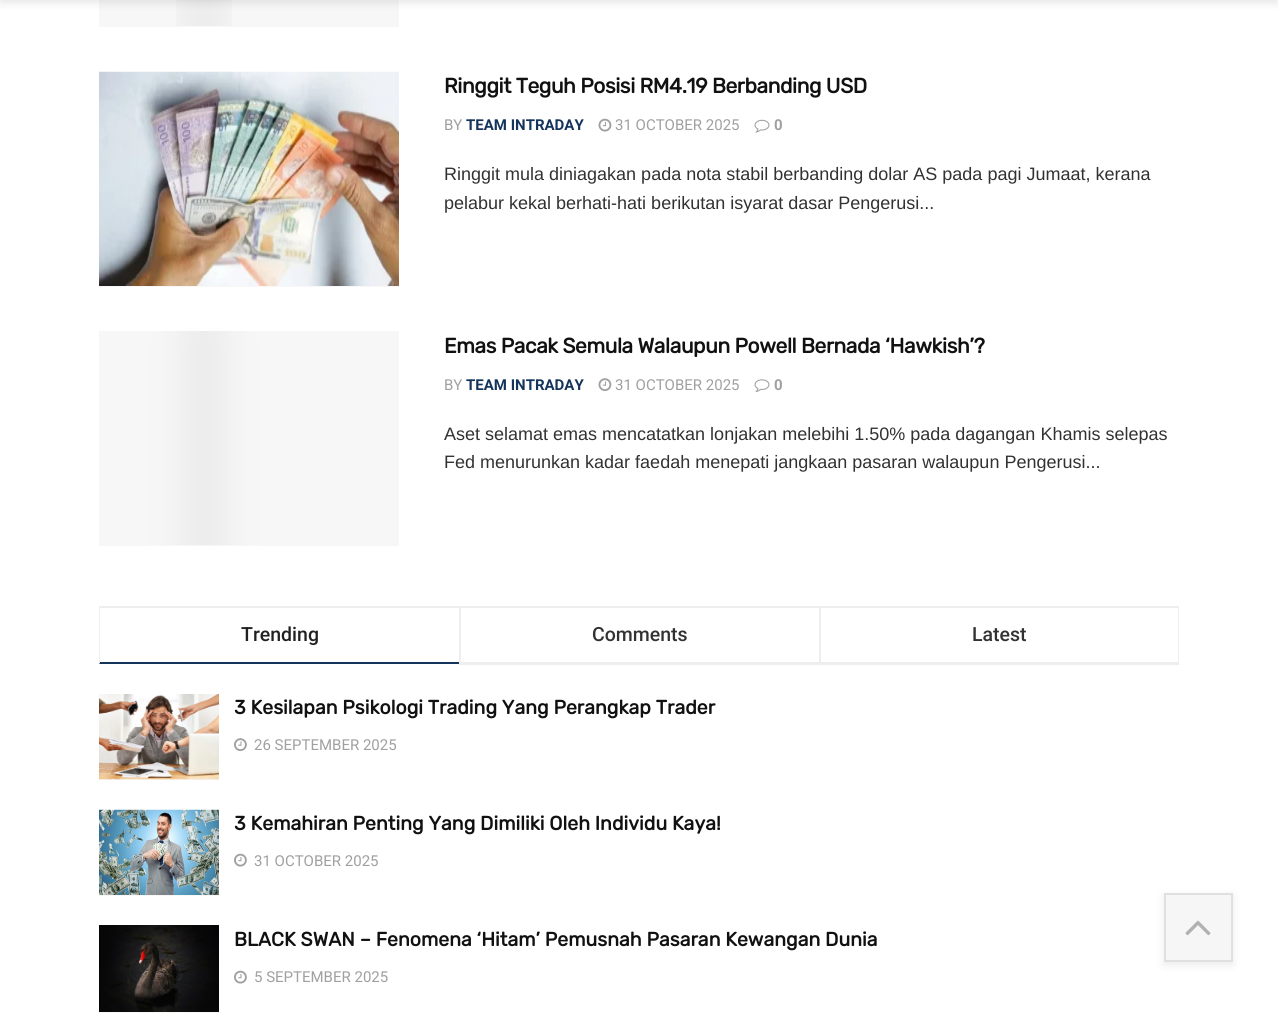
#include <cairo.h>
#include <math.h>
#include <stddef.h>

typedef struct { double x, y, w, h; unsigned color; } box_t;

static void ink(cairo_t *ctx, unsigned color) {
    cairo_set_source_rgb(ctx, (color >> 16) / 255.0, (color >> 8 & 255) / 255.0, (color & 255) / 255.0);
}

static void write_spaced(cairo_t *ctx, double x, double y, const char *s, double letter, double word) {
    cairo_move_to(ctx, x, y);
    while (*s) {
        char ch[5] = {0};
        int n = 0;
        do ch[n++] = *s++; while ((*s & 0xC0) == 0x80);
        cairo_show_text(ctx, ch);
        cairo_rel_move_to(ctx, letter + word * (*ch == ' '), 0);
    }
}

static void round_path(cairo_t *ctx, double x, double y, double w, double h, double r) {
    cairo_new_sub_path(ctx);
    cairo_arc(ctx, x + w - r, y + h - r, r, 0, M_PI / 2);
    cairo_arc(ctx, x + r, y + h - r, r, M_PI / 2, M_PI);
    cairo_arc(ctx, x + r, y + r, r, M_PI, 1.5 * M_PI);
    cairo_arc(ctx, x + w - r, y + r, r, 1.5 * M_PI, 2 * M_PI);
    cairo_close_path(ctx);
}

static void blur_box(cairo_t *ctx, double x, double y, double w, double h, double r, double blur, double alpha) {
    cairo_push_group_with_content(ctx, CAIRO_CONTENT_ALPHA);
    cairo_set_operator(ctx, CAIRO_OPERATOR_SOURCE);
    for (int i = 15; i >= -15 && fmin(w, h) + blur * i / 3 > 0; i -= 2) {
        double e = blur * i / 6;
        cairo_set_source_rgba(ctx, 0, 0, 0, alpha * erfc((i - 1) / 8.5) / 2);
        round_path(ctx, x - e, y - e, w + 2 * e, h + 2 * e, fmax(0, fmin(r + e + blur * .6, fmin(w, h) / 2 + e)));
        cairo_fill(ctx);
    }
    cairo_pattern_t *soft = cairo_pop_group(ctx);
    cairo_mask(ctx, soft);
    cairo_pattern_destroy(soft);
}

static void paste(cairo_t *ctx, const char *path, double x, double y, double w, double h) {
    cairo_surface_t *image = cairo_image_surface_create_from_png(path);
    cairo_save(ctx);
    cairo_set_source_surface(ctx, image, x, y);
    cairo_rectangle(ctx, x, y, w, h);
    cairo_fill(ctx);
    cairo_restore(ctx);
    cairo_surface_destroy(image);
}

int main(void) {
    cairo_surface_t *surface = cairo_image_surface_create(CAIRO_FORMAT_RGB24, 1278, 1036);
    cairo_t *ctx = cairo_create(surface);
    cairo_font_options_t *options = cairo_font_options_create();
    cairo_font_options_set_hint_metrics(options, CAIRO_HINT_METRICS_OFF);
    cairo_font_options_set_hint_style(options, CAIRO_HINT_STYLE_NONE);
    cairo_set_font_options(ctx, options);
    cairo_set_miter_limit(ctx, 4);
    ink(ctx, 0xFFFFFF);
    cairo_paint(ctx);
    ink(ctx, 0xF7F7F7);
    cairo_rectangle(ctx, 99, 0, 300, 27);
    cairo_fill(ctx);
    paste(ctx, "media/1.png", 176, 0, 56, 26);
    ink(ctx, 0x000000);
    blur_box(ctx, 0, -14, 1278, 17, 0, 4.5, 0.1);
    ink(ctx, 0xF7F7F7);
    cairo_rectangle(ctx, 99, 286, 300, 1);
    cairo_fill(ctx);
    paste(ctx, "media/2.png", 99, 71, 300, 215);
    cairo_select_font_face(ctx, "Rubik", CAIRO_FONT_SLANT_NORMAL, CAIRO_FONT_WEIGHT_BOLD);
    cairo_set_font_size(ctx, 21);
    ink(ctx, 0x111111);
    write_spaced(ctx, 444, 93, "Ringgit Teguh Posisi RM4.19 Berbanding USD", -0.42, 0);
    cairo_select_font_face(ctx, "Roboto", CAIRO_FONT_SLANT_NORMAL, CAIRO_FONT_WEIGHT_NORMAL);
    cairo_set_font_size(ctx, 15);
    ink(ctx, 0xA0A0A0);
    cairo_move_to(ctx, 444, 130);
    cairo_show_text(ctx, "BY");
    cairo_select_font_face(ctx, "Roboto", CAIRO_FONT_SLANT_NORMAL, CAIRO_FONT_WEIGHT_BOLD);
    ink(ctx, 0x15345C);
    cairo_move_to(ctx, 466, 130);
    cairo_show_text(ctx, "TEAM INTRADAY");
    paste(ctx, "media/3.png", 598, 118, 14, 14);
    cairo_select_font_face(ctx, "Roboto", CAIRO_FONT_SLANT_NORMAL, CAIRO_FONT_WEIGHT_NORMAL);
    ink(ctx, 0xA0A0A0);
    cairo_move_to(ctx, 615, 130);
    cairo_show_text(ctx, "31 OCTOBER 2025");
    paste(ctx, "media/4.png", 754, 119, 16, 14);
    cairo_select_font_face(ctx, "Roboto", CAIRO_FONT_SLANT_NORMAL, CAIRO_FONT_WEIGHT_BOLD);
    cairo_move_to(ctx, 774, 130);
    cairo_show_text(ctx, "0");
    cairo_select_font_face(ctx, "Liberation Sans", CAIRO_FONT_SLANT_NORMAL, CAIRO_FONT_WEIGHT_NORMAL);
    cairo_set_font_size(ctx, 18);
    ink(ctx, 0x323232);
    cairo_move_to(ctx, 444, 180);
    cairo_show_text(ctx, "Ringgit mula diniagakan pada nota stabil berbanding dolar AS pada pagi Jumaat, kerana");
    cairo_move_to(ctx, 444, 209);
    cairo_show_text(ctx, "pelabur kekal berhati-hati berikutan isyarat dasar Pengerusi...");
    ink(ctx, 0xF7F7F7);
    cairo_rectangle(ctx, 99, 545, 300, 1);
    cairo_fill(ctx);
    paste(ctx, "media/5.png", 99, 331, 300, 214);
    cairo_select_font_face(ctx, "Rubik", CAIRO_FONT_SLANT_NORMAL, CAIRO_FONT_WEIGHT_BOLD);
    cairo_set_font_size(ctx, 21);
    ink(ctx, 0x111111);
    write_spaced(ctx, 444, 353, "Emas Pacak Semula Walaupun Powell Bernada ‘Hawkish’?", -0.42, 0);
    cairo_select_font_face(ctx, "Roboto", CAIRO_FONT_SLANT_NORMAL, CAIRO_FONT_WEIGHT_NORMAL);
    cairo_set_font_size(ctx, 15);
    ink(ctx, 0xA0A0A0);
    cairo_move_to(ctx, 444, 390);
    cairo_show_text(ctx, "BY");
    cairo_select_font_face(ctx, "Roboto", CAIRO_FONT_SLANT_NORMAL, CAIRO_FONT_WEIGHT_BOLD);
    ink(ctx, 0x15345C);
    cairo_move_to(ctx, 466, 390);
    cairo_show_text(ctx, "TEAM INTRADAY");
    paste(ctx, "media/6.png", 598, 378, 14, 13);
    cairo_select_font_face(ctx, "Roboto", CAIRO_FONT_SLANT_NORMAL, CAIRO_FONT_WEIGHT_NORMAL);
    ink(ctx, 0xA0A0A0);
    cairo_move_to(ctx, 615, 390);
    cairo_show_text(ctx, "31 OCTOBER 2025");
    paste(ctx, "media/7.png", 754, 379, 16, 14);
    cairo_select_font_face(ctx, "Roboto", CAIRO_FONT_SLANT_NORMAL, CAIRO_FONT_WEIGHT_BOLD);
    cairo_move_to(ctx, 774, 390);
    cairo_show_text(ctx, "0");
    cairo_select_font_face(ctx, "Liberation Sans", CAIRO_FONT_SLANT_NORMAL, CAIRO_FONT_WEIGHT_NORMAL);
    cairo_set_font_size(ctx, 18);
    ink(ctx, 0x323232);
    cairo_move_to(ctx, 444, 440);
    cairo_show_text(ctx, "Aset selamat emas mencatatkan lonjakan melebihi 1.50% pada dagangan Khamis selepas");
    cairo_move_to(ctx, 444, 468);
    cairo_show_text(ctx, "Fed menurunkan kadar faedah menepati jangkaan pasaran walaupun Pengerusi...");
    ink(ctx, 0xEEEEEE);
    cairo_rectangle(ctx, 99, 606, 1080, 2);
    cairo_fill(ctx);
    ink(ctx, 0x15345C);
    cairo_new_path(ctx);
    cairo_move_to(ctx, 459, 664);
    cairo_line_to(ctx, 99, 664);
    cairo_line_to(ctx, 100, 662);
    cairo_line_to(ctx, 459, 662);
    cairo_close_path(ctx);
    cairo_fill(ctx);
    ink(ctx, 0xEEEEEE);
    cairo_new_path(ctx);
    cairo_move_to(ctx, 99, 664);
    cairo_line_to(ctx, 99, 606);
    cairo_line_to(ctx, 100, 608);
    cairo_line_to(ctx, 100, 662);
    cairo_close_path(ctx);
    cairo_fill(ctx);
    cairo_select_font_face(ctx, "Roboto Medium", CAIRO_FONT_SLANT_NORMAL, CAIRO_FONT_WEIGHT_NORMAL);
    cairo_set_font_size(ctx, 19.5);
    ink(ctx, 0x212121);
    cairo_move_to(ctx, 241, 641);
    cairo_show_text(ctx, "Trending");
    ink(ctx, 0xEEEEEE);
    cairo_rectangle(ctx, 459, 662, 360, 3);
    cairo_fill(ctx);
    cairo_rectangle(ctx, 459, 606, 2, 59);
    cairo_fill(ctx);
    ink(ctx, 0x323232);
    cairo_move_to(ctx, 592, 641);
    cairo_show_text(ctx, "Comments");
    {
        static const box_t items[] = {
            {1178, 606, 1, 59, 0xEEEEEE},
            {819, 662, 360, 3, 0xEEEEEE},
            {819, 606, 2, 59, 0xEEEEEE},
        };
        for (size_t i = 0; i < sizeof items / sizeof *items; i++) {
            ink(ctx, items[i].color);
            cairo_rectangle(ctx, items[i].x, items[i].y, items[i].w, items[i].h);
            cairo_fill(ctx);
        }
    }
    ink(ctx, 0x323232);
    cairo_move_to(ctx, 972, 641);
    cairo_show_text(ctx, "Latest");
    ink(ctx, 0xF7F7F7);
    cairo_rectangle(ctx, 99, 779, 120, 1);
    cairo_fill(ctx);
    paste(ctx, "media/8.png", 99, 694, 120, 86);
    cairo_select_font_face(ctx, "Rubik", CAIRO_FONT_SLANT_NORMAL, CAIRO_FONT_WEIGHT_BOLD);
    ink(ctx, 0x111111);
    cairo_move_to(ctx, 234, 714);
    cairo_show_text(ctx, "3 Kesilapan Psikologi Trading Yang Perangkap Trader");
    paste(ctx, "media/9.png", 234, 738, 13, 14);
    cairo_select_font_face(ctx, "Roboto", CAIRO_FONT_SLANT_NORMAL, CAIRO_FONT_WEIGHT_NORMAL);
    cairo_set_font_size(ctx, 15);
    ink(ctx, 0xA0A0A0);
    cairo_move_to(ctx, 254, 750);
    cairo_show_text(ctx, "26 SEPTEMBER 2025");
    ink(ctx, 0xF7F7F7);
    cairo_rectangle(ctx, 99, 895, 120, 1);
    cairo_fill(ctx);
    paste(ctx, "media/10.png", 99, 809, 120, 86);
    cairo_select_font_face(ctx, "Rubik", CAIRO_FONT_SLANT_NORMAL, CAIRO_FONT_WEIGHT_BOLD);
    cairo_set_font_size(ctx, 19.5);
    ink(ctx, 0x111111);
    cairo_move_to(ctx, 234, 830);
    cairo_show_text(ctx, "3 Kemahiran Penting Yang Dimiliki Oleh Individu Kaya!");
    paste(ctx, "media/11.png", 234, 853, 13, 14);
    cairo_select_font_face(ctx, "Roboto", CAIRO_FONT_SLANT_NORMAL, CAIRO_FONT_WEIGHT_NORMAL);
    cairo_set_font_size(ctx, 15);
    ink(ctx, 0xA0A0A0);
    cairo_move_to(ctx, 254, 866);
    cairo_show_text(ctx, "31 OCTOBER 2025");
    ink(ctx, 0xF7F7F7);
    cairo_rectangle(ctx, 99, 1012, 120, 1);
    cairo_fill(ctx);
    paste(ctx, "media/12.png", 99, 925, 120, 87);
    cairo_select_font_face(ctx, "Rubik", CAIRO_FONT_SLANT_NORMAL, CAIRO_FONT_WEIGHT_BOLD);
    cairo_set_font_size(ctx, 19.5);
    ink(ctx, 0x111111);
    cairo_move_to(ctx, 234, 946);
    cairo_show_text(ctx, "BLACK SWAN – Fenomena ‘Hitam’ Pemusnah Pasaran Kewangan Dunia");
    paste(ctx, "media/11.png", 234, 970, 13, 14);
    cairo_select_font_face(ctx, "Roboto", CAIRO_FONT_SLANT_NORMAL, CAIRO_FONT_WEIGHT_NORMAL);
    cairo_set_font_size(ctx, 15);
    ink(ctx, 0xA0A0A0);
    cairo_move_to(ctx, 254, 982);
    cairo_show_text(ctx, "5 SEPTEMBER 2025");
    cairo_save(ctx);
    cairo_set_fill_rule(ctx, CAIRO_FILL_RULE_EVEN_ODD);
    cairo_new_path(ctx);
    cairo_move_to(ctx, 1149, 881);
    cairo_line_to(ctx, 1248, 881);
    cairo_line_to(ctx, 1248, 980);
    cairo_line_to(ctx, 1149, 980);
    cairo_close_path(ctx);
    cairo_move_to(ctx, 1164, 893);
    cairo_line_to(ctx, 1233, 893);
    cairo_line_to(ctx, 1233, 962);
    cairo_line_to(ctx, 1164, 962);
    cairo_close_path(ctx);
    cairo_clip(ctx);
    ink(ctx, 0x333333);
    blur_box(ctx, 1164, 896, 69, 69, 0, 4.5, 0.1);
    cairo_restore(ctx);
    cairo_set_source_rgba(ctx, 0.769, 0.769, 0.769, 0.15);
    cairo_rectangle(ctx, 1164, 893, 69, 69);
    cairo_fill(ctx);
    cairo_rectangle(ctx, 1165, 894, 67, 67);
    cairo_set_source_rgba(ctx, 0.2, 0.2, 0.2, 0.11);
    cairo_stroke(ctx);
    paste(ctx, "media/13.png", 1185, 920, 26, 16);
    cairo_surface_write_to_png(surface, "image.png");
    cairo_font_options_destroy(options);
    cairo_destroy(ctx);
    cairo_surface_destroy(surface);
    return 0;
}
